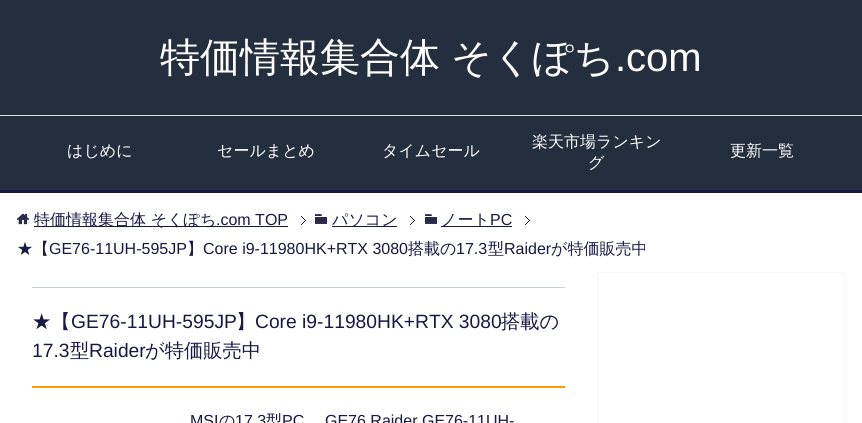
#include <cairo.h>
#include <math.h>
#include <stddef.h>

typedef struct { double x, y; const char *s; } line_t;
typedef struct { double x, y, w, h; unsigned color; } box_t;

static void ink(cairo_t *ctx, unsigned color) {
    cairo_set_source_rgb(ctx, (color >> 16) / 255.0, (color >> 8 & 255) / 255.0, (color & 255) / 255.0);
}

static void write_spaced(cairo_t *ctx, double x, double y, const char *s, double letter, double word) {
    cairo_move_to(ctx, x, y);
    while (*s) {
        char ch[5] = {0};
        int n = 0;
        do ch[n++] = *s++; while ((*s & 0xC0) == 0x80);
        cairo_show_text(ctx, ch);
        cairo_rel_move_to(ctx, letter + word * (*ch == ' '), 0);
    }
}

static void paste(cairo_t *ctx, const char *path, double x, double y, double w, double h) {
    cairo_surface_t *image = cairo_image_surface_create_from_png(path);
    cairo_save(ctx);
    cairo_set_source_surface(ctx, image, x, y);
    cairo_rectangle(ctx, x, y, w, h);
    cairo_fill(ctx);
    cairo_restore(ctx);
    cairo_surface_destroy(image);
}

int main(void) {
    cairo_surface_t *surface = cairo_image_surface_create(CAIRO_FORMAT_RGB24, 862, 423);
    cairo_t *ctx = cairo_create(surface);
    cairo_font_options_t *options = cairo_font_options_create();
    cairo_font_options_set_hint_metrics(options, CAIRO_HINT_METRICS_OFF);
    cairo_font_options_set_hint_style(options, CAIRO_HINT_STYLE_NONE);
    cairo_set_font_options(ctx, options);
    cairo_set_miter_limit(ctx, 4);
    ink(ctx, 0xFFFFFF);
    cairo_paint(ctx);
    ink(ctx, 0x232F3E);
    cairo_rectangle(ctx, 0, 0, 862, 115);
    cairo_fill(ctx);
    cairo_select_font_face(ctx, "WenQuanYi Zen Hei Medium", CAIRO_FONT_SLANT_NORMAL, CAIRO_FONT_WEIGHT_NORMAL);
    cairo_set_font_size(ctx, 40);
    ink(ctx, 0xFFFFFF);
    write_spaced(ctx, 160, 71, "特価情報集合体 そくぽち", 0, -1);
    cairo_select_font_face(ctx, "Liberation Sans", CAIRO_FONT_SLANT_NORMAL, CAIRO_FONT_WEIGHT_NORMAL);
    cairo_move_to(ctx, 615, 71);
    cairo_show_text(ctx, ".com");
    {
        static const box_t items[] = {
            {0, 116, 862, 74, 0x232F3E},
            {0, 115, 862, 1, 0xDDDDDD},
            {0, 190, 862, 3, 0x171844},
        };
        for (size_t i = 0; i < sizeof items / sizeof *items; i++) {
            ink(ctx, items[i].color);
            cairo_rectangle(ctx, items[i].x, items[i].y, items[i].w, items[i].h);
            cairo_fill(ctx);
        }
    }
    cairo_select_font_face(ctx, "WenQuanYi Zen Hei Medium", CAIRO_FONT_SLANT_NORMAL, CAIRO_FONT_WEIGHT_NORMAL);
    cairo_set_font_size(ctx, 16);
    ink(ctx, 0xFFFFFF);
    {
        static const line_t items[] = {
            {67, 156, "はじめに"},
            {217, 156, "セールまとめ"},
            {382, 156, "タイムセール"},
            {532, 147, "楽天市場ランキン"},
            {588, 168, "グ"},
            {730, 156, "更新一覧"},
        };
        for (size_t i = 0; i < sizeof items / sizeof *items; i++) {
            cairo_move_to(ctx, items[i].x, items[i].y);
            cairo_show_text(ctx, items[i].s);
        }
    }
    paste(ctx, "media/1.png", 301, 216, 5, 9);
    paste(ctx, "media/2.png", 17, 213, 12, 12);
    ink(ctx, 0x171844);
    cairo_rectangle(ctx, 34, 226, 254, 1);
    cairo_fill(ctx);
    cairo_move_to(ctx, 34, 225);
    cairo_show_text(ctx, "特価情報集合体 そくぽち");
    cairo_select_font_face(ctx, "Liberation Sans", CAIRO_FONT_SLANT_NORMAL, CAIRO_FONT_WEIGHT_NORMAL);
    cairo_move_to(ctx, 216, 225);
    cairo_show_text(ctx, ".com TOP");
    paste(ctx, "media/1.png", 410, 216, 5, 9);
    paste(ctx, "media/3.png", 315, 214, 12, 10);
    cairo_rectangle(ctx, 332, 226, 65, 1);
    cairo_fill(ctx);
    cairo_select_font_face(ctx, "WenQuanYi Zen Hei Medium", CAIRO_FONT_SLANT_NORMAL, CAIRO_FONT_WEIGHT_NORMAL);
    cairo_move_to(ctx, 332, 225);
    cairo_show_text(ctx, "パソコン");
    paste(ctx, "media/1.png", 525, 216, 5, 9);
    paste(ctx, "media/3.png", 425, 214, 12, 10);
    cairo_rectangle(ctx, 441, 226, 71, 1);
    cairo_fill(ctx);
    cairo_move_to(ctx, 441, 225);
    cairo_show_text(ctx, "ノート");
    cairo_select_font_face(ctx, "Liberation Sans", CAIRO_FONT_SLANT_NORMAL, CAIRO_FONT_WEIGHT_NORMAL);
    cairo_move_to(ctx, 490, 225);
    cairo_show_text(ctx, "PC");
    cairo_select_font_face(ctx, "WenQuanYi Zen Hei Medium", CAIRO_FONT_SLANT_NORMAL, CAIRO_FONT_WEIGHT_NORMAL);
    cairo_move_to(ctx, 17, 254);
    cairo_show_text(ctx, "★【");
    cairo_select_font_face(ctx, "Liberation Sans", CAIRO_FONT_SLANT_NORMAL, CAIRO_FONT_WEIGHT_NORMAL);
    cairo_move_to(ctx, 49, 254);
    cairo_show_text(ctx, "GE76-11UH-595JP");
    cairo_select_font_face(ctx, "WenQuanYi Zen Hei Medium", CAIRO_FONT_SLANT_NORMAL, CAIRO_FONT_WEIGHT_NORMAL);
    cairo_move_to(ctx, 187, 254);
    cairo_show_text(ctx, "】");
    cairo_select_font_face(ctx, "Liberation Sans", CAIRO_FONT_SLANT_NORMAL, CAIRO_FONT_WEIGHT_NORMAL);
    cairo_move_to(ctx, 203, 254);
    cairo_show_text(ctx, "Core i9-11980HK+RTX 3080");
    cairo_select_font_face(ctx, "WenQuanYi Zen Hei Medium", CAIRO_FONT_SLANT_NORMAL, CAIRO_FONT_WEIGHT_NORMAL);
    cairo_move_to(ctx, 408, 254);
    cairo_show_text(ctx, "搭載の");
    cairo_select_font_face(ctx, "Liberation Sans", CAIRO_FONT_SLANT_NORMAL, CAIRO_FONT_WEIGHT_NORMAL);
    cairo_move_to(ctx, 456, 254);
    cairo_show_text(ctx, "17.3");
    cairo_select_font_face(ctx, "WenQuanYi Zen Hei Medium", CAIRO_FONT_SLANT_NORMAL, CAIRO_FONT_WEIGHT_NORMAL);
    cairo_move_to(ctx, 488, 254);
    cairo_show_text(ctx, "型");
    cairo_select_font_face(ctx, "Liberation Sans", CAIRO_FONT_SLANT_NORMAL, CAIRO_FONT_WEIGHT_NORMAL);
    cairo_move_to(ctx, 504, 254);
    cairo_show_text(ctx, "Raider");
    cairo_select_font_face(ctx, "WenQuanYi Zen Hei Medium", CAIRO_FONT_SLANT_NORMAL, CAIRO_FONT_WEIGHT_NORMAL);
    cairo_move_to(ctx, 551, 254);
    cairo_show_text(ctx, "が特価販売中");
    ink(ctx, 0xC6D0DC);
    cairo_rectangle(ctx, 32, 287, 533, 1);
    cairo_fill(ctx);
    ink(ctx, 0xFF9900);
    cairo_rectangle(ctx, 32, 386, 533, 2);
    cairo_fill(ctx);
    cairo_set_font_size(ctx, 19.25);
    ink(ctx, 0x171844);
    cairo_move_to(ctx, 32, 328);
    cairo_show_text(ctx, "★【");
    cairo_select_font_face(ctx, "Liberation Sans", CAIRO_FONT_SLANT_NORMAL, CAIRO_FONT_WEIGHT_NORMAL);
    cairo_move_to(ctx, 71, 328);
    cairo_show_text(ctx, "GE76-11UH-595JP");
    cairo_select_font_face(ctx, "WenQuanYi Zen Hei Medium", CAIRO_FONT_SLANT_NORMAL, CAIRO_FONT_WEIGHT_NORMAL);
    cairo_move_to(ctx, 236, 328);
    cairo_show_text(ctx, "】");
    cairo_select_font_face(ctx, "Liberation Sans", CAIRO_FONT_SLANT_NORMAL, CAIRO_FONT_WEIGHT_NORMAL);
    cairo_move_to(ctx, 255, 328);
    cairo_show_text(ctx, "Core i9-11980HK+RTX 3080");
    cairo_select_font_face(ctx, "WenQuanYi Zen Hei Medium", CAIRO_FONT_SLANT_NORMAL, CAIRO_FONT_WEIGHT_NORMAL);
    cairo_move_to(ctx, 501, 328);
    cairo_show_text(ctx, "搭載の");
    cairo_select_font_face(ctx, "Liberation Sans", CAIRO_FONT_SLANT_NORMAL, CAIRO_FONT_WEIGHT_NORMAL);
    cairo_move_to(ctx, 32, 357);
    cairo_show_text(ctx, "17.3");
    cairo_select_font_face(ctx, "WenQuanYi Zen Hei Medium", CAIRO_FONT_SLANT_NORMAL, CAIRO_FONT_WEIGHT_NORMAL);
    cairo_move_to(ctx, 70, 357);
    cairo_show_text(ctx, "型");
    cairo_select_font_face(ctx, "Liberation Sans", CAIRO_FONT_SLANT_NORMAL, CAIRO_FONT_WEIGHT_NORMAL);
    cairo_move_to(ctx, 89, 357);
    cairo_show_text(ctx, "Raider");
    cairo_select_font_face(ctx, "WenQuanYi Zen Hei Medium", CAIRO_FONT_SLANT_NORMAL, CAIRO_FONT_WEIGHT_NORMAL);
    cairo_move_to(ctx, 145, 357);
    cairo_show_text(ctx, "が特価販売中");
    cairo_select_font_face(ctx, "Liberation Sans", CAIRO_FONT_SLANT_NORMAL, CAIRO_FONT_WEIGHT_NORMAL);
    cairo_set_font_size(ctx, 16);
    cairo_move_to(ctx, 190, 426);
    cairo_show_text(ctx, "MSI");
    cairo_select_font_face(ctx, "WenQuanYi Zen Hei Medium", CAIRO_FONT_SLANT_NORMAL, CAIRO_FONT_WEIGHT_NORMAL);
    cairo_move_to(ctx, 219, 426);
    cairo_show_text(ctx, "の");
    cairo_select_font_face(ctx, "Liberation Sans", CAIRO_FONT_SLANT_NORMAL, CAIRO_FONT_WEIGHT_NORMAL);
    cairo_move_to(ctx, 235, 426);
    cairo_show_text(ctx, "17.3");
    cairo_select_font_face(ctx, "WenQuanYi Zen Hei Medium", CAIRO_FONT_SLANT_NORMAL, CAIRO_FONT_WEIGHT_NORMAL);
    cairo_move_to(ctx, 266, 426);
    cairo_show_text(ctx, "型");
    cairo_select_font_face(ctx, "Liberation Sans", CAIRO_FONT_SLANT_NORMAL, CAIRO_FONT_WEIGHT_NORMAL);
    cairo_move_to(ctx, 282, 426);
    cairo_show_text(ctx, "PC");
    cairo_move_to(ctx, 325, 426);
    cairo_show_text(ctx, "GE76 Raider GE76-11UH-");
    cairo_rectangle(ctx, 597.5, 272.5, 247, 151);
    ink(ctx, 0xF6F8FE);
    cairo_set_line_width(ctx, 1);
    cairo_stroke(ctx);
    cairo_surface_write_to_png(surface, "image.png");
    cairo_font_options_destroy(options);
    cairo_destroy(ctx);
    cairo_surface_destroy(surface);
    return 0;
}
